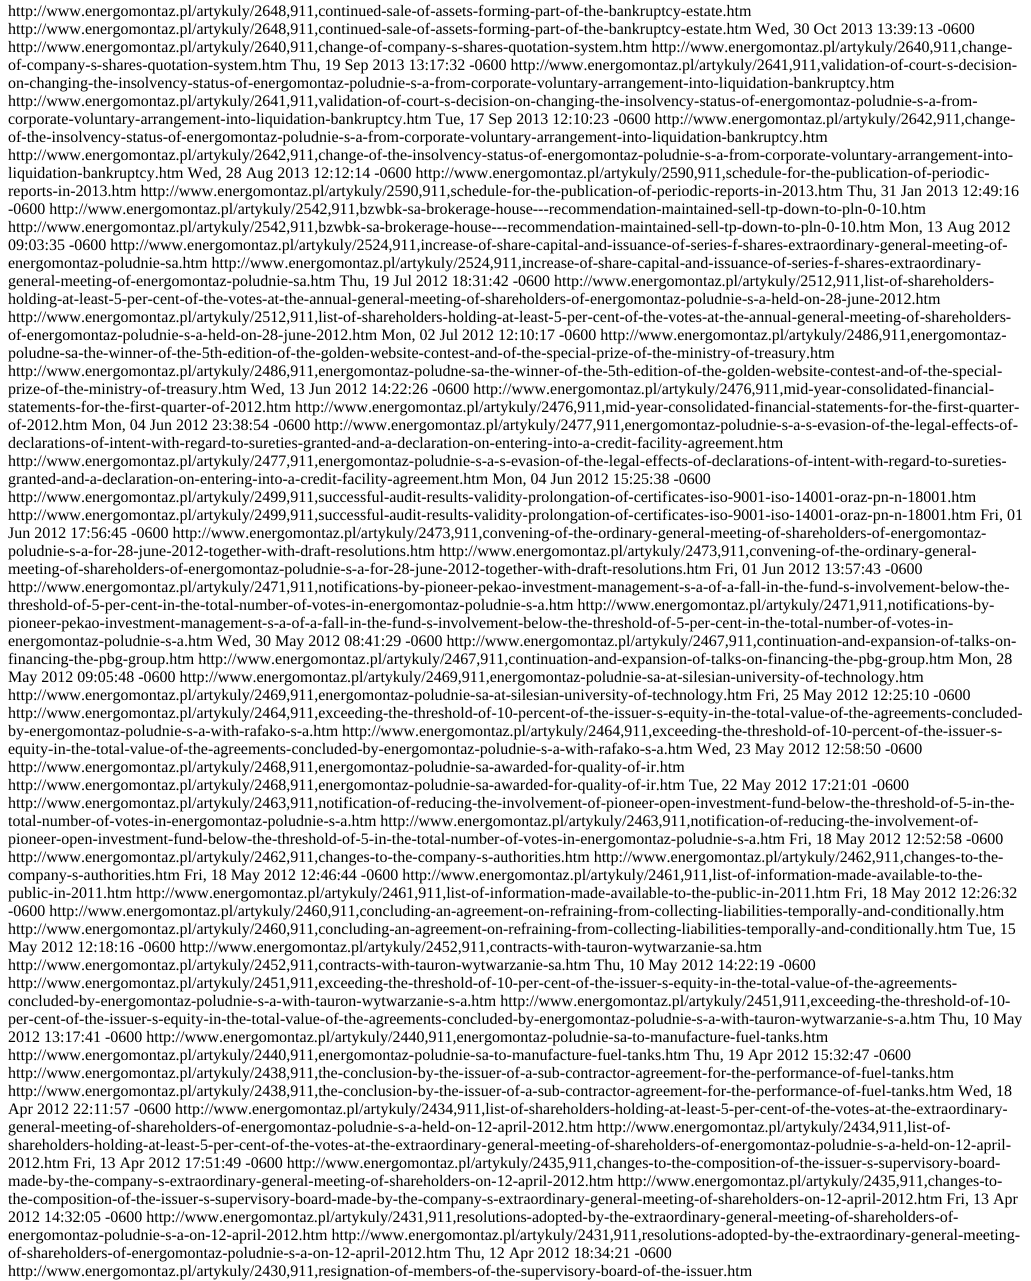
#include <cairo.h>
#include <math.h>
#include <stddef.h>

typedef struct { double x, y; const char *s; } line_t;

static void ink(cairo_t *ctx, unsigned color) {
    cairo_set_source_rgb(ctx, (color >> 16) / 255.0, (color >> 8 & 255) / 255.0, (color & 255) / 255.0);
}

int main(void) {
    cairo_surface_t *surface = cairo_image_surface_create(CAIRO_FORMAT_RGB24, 1031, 1281);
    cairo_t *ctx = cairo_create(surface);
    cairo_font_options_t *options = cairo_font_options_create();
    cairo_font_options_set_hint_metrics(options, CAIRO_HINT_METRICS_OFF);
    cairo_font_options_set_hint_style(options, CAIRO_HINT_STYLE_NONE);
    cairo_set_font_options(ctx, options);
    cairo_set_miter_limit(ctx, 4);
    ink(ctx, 0xFFFFFF);
    cairo_paint(ctx);
    cairo_select_font_face(ctx, "Liberation Serif", CAIRO_FONT_SLANT_NORMAL, CAIRO_FONT_WEIGHT_NORMAL);
    cairo_set_font_size(ctx, 16);
    ink(ctx, 0x000000);
    {
        static const line_t items[] = {
            {8, 16, "http://www.energomontaz.pl/artykuly/2648,911,continued-sale-of-assets-forming-part-of-the-bankruptcy-estate.htm"},
            {8, 34, "http://www.energomontaz.pl/artykuly/2648,911,continued-sale-of-assets-forming-part-of-the-bankruptcy-estate.htm Wed, 30 Oct 2013 13:39:13 -0600"},
            {8, 52, "http://www.energomontaz.pl/artykuly/2640,911,change-of-company-s-shares-quotation-system.htm http://www.energomontaz.pl/artykuly/2640,911,change-"},
            {8, 70, "of-company-s-shares-quotation-system.htm Thu, 19 Sep 2013 13:17:32 -0600 http://www.energomontaz.pl/artykuly/2641,911,validation-of-court-s-decision-"},
            {8, 88, "on-changing-the-insolvency-status-of-energomontaz-poludnie-s-a-from-corporate-voluntary-arrangement-into-liquidation-bankruptcy.htm"},
            {8, 106, "http://www.energomontaz.pl/artykuly/2641,911,validation-of-court-s-decision-on-changing-the-insolvency-status-of-energomontaz-poludnie-s-a-from-"},
            {8, 124, "corporate-voluntary-arrangement-into-liquidation-bankruptcy.htm Tue, 17 Sep 2013 12:10:23 -0600 http://www.energomontaz.pl/artykuly/2642,911,change-"},
            {8, 142, "of-the-insolvency-status-of-energomontaz-poludnie-s-a-from-corporate-voluntary-arrangement-into-liquidation-bankruptcy.htm"},
            {8, 160, "http://www.energomontaz.pl/artykuly/2642,911,change-of-the-insolvency-status-of-energomontaz-poludnie-s-a-from-corporate-voluntary-arrangement-into-"},
            {8, 178, "liquidation-bankruptcy.htm Wed, 28 Aug 2013 12:12:14 -0600 http://www.energomontaz.pl/artykuly/2590,911,schedule-for-the-publication-of-periodic-"},
            {8, 196, "reports-in-2013.htm http://www.energomontaz.pl/artykuly/2590,911,schedule-for-the-publication-of-periodic-reports-in-2013.htm Thu, 31 Jan 2013 12:49:16"},
            {8, 214, "-0600 http://www.energomontaz.pl/artykuly/2542,911,bzwbk-sa-brokerage-house---recommendation-maintained-sell-tp-down-to-pln-0-10.htm"},
            {8, 232, "http://www.energomontaz.pl/artykuly/2542,911,bzwbk-sa-brokerage-house---recommendation-maintained-sell-tp-down-to-pln-0-10.htm Mon, 13 Aug 2012"},
            {8, 250, "09:03:35 -0600 http://www.energomontaz.pl/artykuly/2524,911,increase-of-share-capital-and-issuance-of-series-f-shares-extraordinary-general-meeting-of-"},
            {8, 268, "energomontaz-poludnie-sa.htm http://www.energomontaz.pl/artykuly/2524,911,increase-of-share-capital-and-issuance-of-series-f-shares-extraordinary-"},
            {8, 286, "general-meeting-of-energomontaz-poludnie-sa.htm Thu, 19 Jul 2012 18:31:42 -0600 http://www.energomontaz.pl/artykuly/2512,911,list-of-shareholders-"},
            {8, 304, "holding-at-least-5-per-cent-of-the-votes-at-the-annual-general-meeting-of-shareholders-of-energomontaz-poludnie-s-a-held-on-28-june-2012.htm"},
            {8, 322, "http://www.energomontaz.pl/artykuly/2512,911,list-of-shareholders-holding-at-least-5-per-cent-of-the-votes-at-the-annual-general-meeting-of-shareholders-"},
            {8, 340, "of-energomontaz-poludnie-s-a-held-on-28-june-2012.htm Mon, 02 Jul 2012 12:10:17 -0600 http://www.energomontaz.pl/artykuly/2486,911,energomontaz-"},
            {8, 358, "poludne-sa-the-winner-of-the-5th-edition-of-the-golden-website-contest-and-of-the-special-prize-of-the-ministry-of-treasury.htm"},
            {8, 376, "http://www.energomontaz.pl/artykuly/2486,911,energomontaz-poludne-sa-the-winner-of-the-5th-edition-of-the-golden-website-contest-and-of-the-special-"},
            {8, 394, "prize-of-the-ministry-of-treasury.htm Wed, 13 Jun 2012 14:22:26 -0600 http://www.energomontaz.pl/artykuly/2476,911,mid-year-consolidated-financial-"},
            {8, 412, "statements-for-the-first-quarter-of-2012.htm http://www.energomontaz.pl/artykuly/2476,911,mid-year-consolidated-financial-statements-for-the-first-quarter-"},
            {8, 430, "of-2012.htm Mon, 04 Jun 2012 23:38:54 -0600 http://www.energomontaz.pl/artykuly/2477,911,energomontaz-poludnie-s-a-s-evasion-of-the-legal-effects-of-"},
            {8, 448, "declarations-of-intent-with-regard-to-sureties-granted-and-a-declaration-on-entering-into-a-credit-facility-agreement.htm"},
            {8, 466, "http://www.energomontaz.pl/artykuly/2477,911,energomontaz-poludnie-s-a-s-evasion-of-the-legal-effects-of-declarations-of-intent-with-regard-to-sureties-"},
            {8, 484, "granted-and-a-declaration-on-entering-into-a-credit-facility-agreement.htm Mon, 04 Jun 2012 15:25:38 -0600"},
            {8, 502, "http://www.energomontaz.pl/artykuly/2499,911,successful-audit-results-validity-prolongation-of-certificates-iso-9001-iso-14001-oraz-pn-n-18001.htm"},
            {8, 520, "http://www.energomontaz.pl/artykuly/2499,911,successful-audit-results-validity-prolongation-of-certificates-iso-9001-iso-14001-oraz-pn-n-18001.htm Fri, 01"},
            {8, 538, "Jun 2012 17:56:45 -0600 http://www.energomontaz.pl/artykuly/2473,911,convening-of-the-ordinary-general-meeting-of-shareholders-of-energomontaz-"},
            {8, 556, "poludnie-s-a-for-28-june-2012-together-with-draft-resolutions.htm http://www.energomontaz.pl/artykuly/2473,911,convening-of-the-ordinary-general-"},
            {8, 574, "meeting-of-shareholders-of-energomontaz-poludnie-s-a-for-28-june-2012-together-with-draft-resolutions.htm Fri, 01 Jun 2012 13:57:43 -0600"},
            {8, 592, "http://www.energomontaz.pl/artykuly/2471,911,notifications-by-pioneer-pekao-investment-management-s-a-of-a-fall-in-the-fund-s-involvement-below-the-"},
            {8, 610, "threshold-of-5-per-cent-in-the-total-number-of-votes-in-energomontaz-poludnie-s-a.htm http://www.energomontaz.pl/artykuly/2471,911,notifications-by-"},
            {8, 628, "pioneer-pekao-investment-management-s-a-of-a-fall-in-the-fund-s-involvement-below-the-threshold-of-5-per-cent-in-the-total-number-of-votes-in-"},
            {8, 646, "energomontaz-poludnie-s-a.htm Wed, 30 May 2012 08:41:29 -0600 http://www.energomontaz.pl/artykuly/2467,911,continuation-and-expansion-of-talks-on-"},
            {8, 664, "financing-the-pbg-group.htm http://www.energomontaz.pl/artykuly/2467,911,continuation-and-expansion-of-talks-on-financing-the-pbg-group.htm Mon, 28"},
            {8, 682, "May 2012 09:05:48 -0600 http://www.energomontaz.pl/artykuly/2469,911,energomontaz-poludnie-sa-at-silesian-university-of-technology.htm"},
            {8, 700, "http://www.energomontaz.pl/artykuly/2469,911,energomontaz-poludnie-sa-at-silesian-university-of-technology.htm Fri, 25 May 2012 12:25:10 -0600"},
            {8, 718, "http://www.energomontaz.pl/artykuly/2464,911,exceeding-the-threshold-of-10-percent-of-the-issuer-s-equity-in-the-total-value-of-the-agreements-concluded-"},
            {8, 736, "by-energomontaz-poludnie-s-a-with-rafako-s-a.htm http://www.energomontaz.pl/artykuly/2464,911,exceeding-the-threshold-of-10-percent-of-the-issuer-s-"},
            {8, 754, "equity-in-the-total-value-of-the-agreements-concluded-by-energomontaz-poludnie-s-a-with-rafako-s-a.htm Wed, 23 May 2012 12:58:50 -0600"},
            {8, 772, "http://www.energomontaz.pl/artykuly/2468,911,energomontaz-poludnie-sa-awarded-for-quality-of-ir.htm"},
            {8, 790, "http://www.energomontaz.pl/artykuly/2468,911,energomontaz-poludnie-sa-awarded-for-quality-of-ir.htm Tue, 22 May 2012 17:21:01 -0600"},
            {8, 808, "http://www.energomontaz.pl/artykuly/2463,911,notification-of-reducing-the-involvement-of-pioneer-open-investment-fund-below-the-threshold-of-5-in-the-"},
            {8, 826, "total-number-of-votes-in-energomontaz-poludnie-s-a.htm http://www.energomontaz.pl/artykuly/2463,911,notification-of-reducing-the-involvement-of-"},
            {8, 844, "pioneer-open-investment-fund-below-the-threshold-of-5-in-the-total-number-of-votes-in-energomontaz-poludnie-s-a.htm Fri, 18 May 2012 12:52:58 -0600"},
            {8, 862, "http://www.energomontaz.pl/artykuly/2462,911,changes-to-the-company-s-authorities.htm http://www.energomontaz.pl/artykuly/2462,911,changes-to-the-"},
            {8, 880, "company-s-authorities.htm Fri, 18 May 2012 12:46:44 -0600 http://www.energomontaz.pl/artykuly/2461,911,list-of-information-made-available-to-the-"},
            {8, 898, "public-in-2011.htm http://www.energomontaz.pl/artykuly/2461,911,list-of-information-made-available-to-the-public-in-2011.htm Fri, 18 May 2012 12:26:32"},
            {8, 916, "-0600 http://www.energomontaz.pl/artykuly/2460,911,concluding-an-agreement-on-refraining-from-collecting-liabilities-temporally-and-conditionally.htm"},
            {8, 934, "http://www.energomontaz.pl/artykuly/2460,911,concluding-an-agreement-on-refraining-from-collecting-liabilities-temporally-and-conditionally.htm Tue, 15"},
            {8, 952, "May 2012 12:18:16 -0600 http://www.energomontaz.pl/artykuly/2452,911,contracts-with-tauron-wytwarzanie-sa.htm"},
            {8, 970, "http://www.energomontaz.pl/artykuly/2452,911,contracts-with-tauron-wytwarzanie-sa.htm Thu, 10 May 2012 14:22:19 -0600"},
            {8, 988, "http://www.energomontaz.pl/artykuly/2451,911,exceeding-the-threshold-of-10-per-cent-of-the-issuer-s-equity-in-the-total-value-of-the-agreements-"},
            {8, 1006, "concluded-by-energomontaz-poludnie-s-a-with-tauron-wytwarzanie-s-a.htm http://www.energomontaz.pl/artykuly/2451,911,exceeding-the-threshold-of-10-"},
            {8, 1024, "per-cent-of-the-issuer-s-equity-in-the-total-value-of-the-agreements-concluded-by-energomontaz-poludnie-s-a-with-tauron-wytwarzanie-s-a.htm Thu, 10 May"},
            {8, 1042, "2012 13:17:41 -0600 http://www.energomontaz.pl/artykuly/2440,911,energomontaz-poludnie-sa-to-manufacture-fuel-tanks.htm"},
            {8, 1060, "http://www.energomontaz.pl/artykuly/2440,911,energomontaz-poludnie-sa-to-manufacture-fuel-tanks.htm Thu, 19 Apr 2012 15:32:47 -0600"},
            {8, 1078, "http://www.energomontaz.pl/artykuly/2438,911,the-conclusion-by-the-issuer-of-a-sub-contractor-agreement-for-the-performance-of-fuel-tanks.htm"},
            {8, 1096, "http://www.energomontaz.pl/artykuly/2438,911,the-conclusion-by-the-issuer-of-a-sub-contractor-agreement-for-the-performance-of-fuel-tanks.htm Wed, 18"},
            {8, 1114, "Apr 2012 22:11:57 -0600 http://www.energomontaz.pl/artykuly/2434,911,list-of-shareholders-holding-at-least-5-per-cent-of-the-votes-at-the-extraordinary-"},
            {8, 1132, "general-meeting-of-shareholders-of-energomontaz-poludnie-s-a-held-on-12-april-2012.htm http://www.energomontaz.pl/artykuly/2434,911,list-of-"},
            {8, 1150, "shareholders-holding-at-least-5-per-cent-of-the-votes-at-the-extraordinary-general-meeting-of-shareholders-of-energomontaz-poludnie-s-a-held-on-12-april-"},
            {8, 1168, "2012.htm Fri, 13 Apr 2012 17:51:49 -0600 http://www.energomontaz.pl/artykuly/2435,911,changes-to-the-composition-of-the-issuer-s-supervisory-board-"},
            {8, 1186, "made-by-the-company-s-extraordinary-general-meeting-of-shareholders-on-12-april-2012.htm http://www.energomontaz.pl/artykuly/2435,911,changes-to-"},
            {8, 1204, "the-composition-of-the-issuer-s-supervisory-board-made-by-the-company-s-extraordinary-general-meeting-of-shareholders-on-12-april-2012.htm Fri, 13 Apr"},
            {8, 1222, "2012 14:32:05 -0600 http://www.energomontaz.pl/artykuly/2431,911,resolutions-adopted-by-the-extraordinary-general-meeting-of-shareholders-of-"},
            {8, 1240, "energomontaz-poludnie-s-a-on-12-april-2012.htm http://www.energomontaz.pl/artykuly/2431,911,resolutions-adopted-by-the-extraordinary-general-meeting-"},
            {8, 1258, "of-shareholders-of-energomontaz-poludnie-s-a-on-12-april-2012.htm Thu, 12 Apr 2012 18:34:21 -0600"},
            {8, 1276, "http://www.energomontaz.pl/artykuly/2430,911,resignation-of-members-of-the-supervisory-board-of-the-issuer.htm"},
        };
        for (size_t i = 0; i < sizeof items / sizeof *items; i++) {
            cairo_move_to(ctx, items[i].x, items[i].y);
            cairo_show_text(ctx, items[i].s);
        }
    }
    cairo_surface_write_to_png(surface, "image.png");
    cairo_font_options_destroy(options);
    cairo_destroy(ctx);
    cairo_surface_destroy(surface);
    return 0;
}
